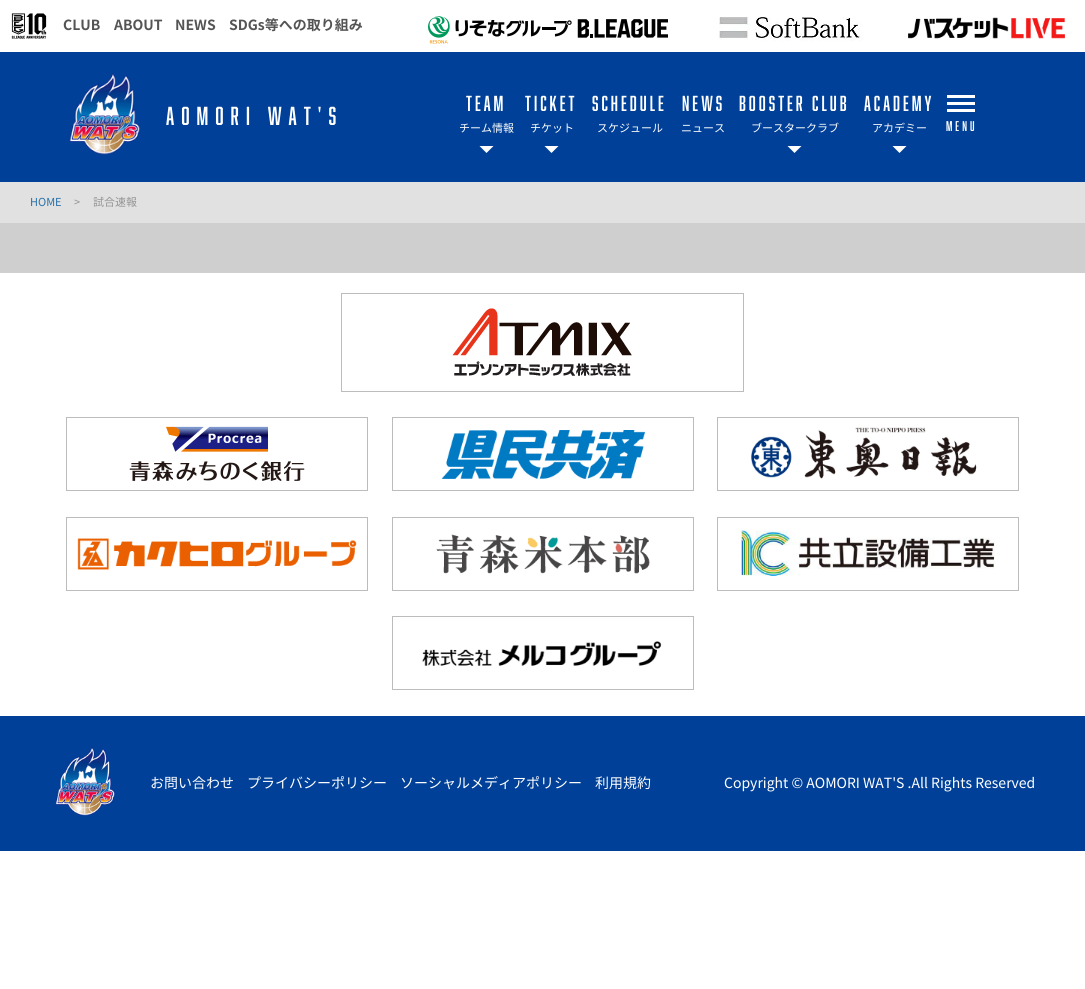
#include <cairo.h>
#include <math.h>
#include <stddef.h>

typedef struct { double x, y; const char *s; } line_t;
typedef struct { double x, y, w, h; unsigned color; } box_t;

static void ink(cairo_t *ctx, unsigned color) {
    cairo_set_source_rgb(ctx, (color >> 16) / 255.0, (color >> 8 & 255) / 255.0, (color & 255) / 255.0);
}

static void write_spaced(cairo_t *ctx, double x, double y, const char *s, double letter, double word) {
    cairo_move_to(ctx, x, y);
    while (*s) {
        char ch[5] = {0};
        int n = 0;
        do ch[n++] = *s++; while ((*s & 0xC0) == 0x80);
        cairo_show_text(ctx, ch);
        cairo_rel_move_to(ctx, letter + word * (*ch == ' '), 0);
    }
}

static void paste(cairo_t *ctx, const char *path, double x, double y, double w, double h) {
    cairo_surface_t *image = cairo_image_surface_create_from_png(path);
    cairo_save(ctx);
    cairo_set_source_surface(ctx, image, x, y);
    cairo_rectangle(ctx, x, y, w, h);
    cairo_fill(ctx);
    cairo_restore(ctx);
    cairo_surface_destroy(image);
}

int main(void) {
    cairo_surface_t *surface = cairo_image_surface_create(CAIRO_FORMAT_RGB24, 1085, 989);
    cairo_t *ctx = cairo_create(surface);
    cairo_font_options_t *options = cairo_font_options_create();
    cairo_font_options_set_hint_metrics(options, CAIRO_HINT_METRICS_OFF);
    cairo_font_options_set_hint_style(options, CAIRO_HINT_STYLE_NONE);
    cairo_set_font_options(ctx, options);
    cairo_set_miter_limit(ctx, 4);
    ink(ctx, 0xFFFFFF);
    cairo_paint(ctx);
    paste(ctx, "media/1.png", 11, 13, 36, 26);
    cairo_select_font_face(ctx, "Noto Sans CJK JP", CAIRO_FONT_SLANT_NORMAL, CAIRO_FONT_WEIGHT_BOLD);
    cairo_set_font_size(ctx, 14);
    ink(ctx, 0x545454);
    {
        static const line_t items[] = {
            {63, 30, "CLUB"},
            {114, 30, "ABOUT"},
            {175, 30, "NEWS"},
            {229, 30, "SDGs等への取り組み"},
        };
        for (size_t i = 0; i < sizeof items / sizeof *items; i++) {
            cairo_move_to(ctx, items[i].x, items[i].y);
            cairo_show_text(ctx, items[i].s);
        }
    }
    paste(ctx, "media/2.png", 428, 16, 240, 28);
    paste(ctx, "media/3.png", 719, 17, 144, 24);
    paste(ctx, "media/4.png", 908, 17, 157, 22);
    ink(ctx, 0x004098);
    cairo_rectangle(ctx, 0, 52, 1085, 130);
    cairo_fill(ctx);
    paste(ctx, "media/5.png", 69, 73, 71, 82);
    cairo_select_font_face(ctx, "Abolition", CAIRO_FONT_SLANT_NORMAL, CAIRO_FONT_WEIGHT_NORMAL);
    cairo_set_font_size(ctx, 24);
    ink(ctx, 0xFFFFFF);
    write_spaced(ctx, 166, 125, "AOMORI WAT'S", 7, 0);
    cairo_set_font_size(ctx, 20);
    write_spaced(ctx, 466, 111, "TEAM", 3, 0);
    cairo_select_font_face(ctx, "Noto Sans CJK JP", CAIRO_FONT_SLANT_NORMAL, CAIRO_FONT_WEIGHT_NORMAL);
    cairo_set_font_size(ctx, 11);
    cairo_move_to(ctx, 459, 132);
    cairo_show_text(ctx, "チーム情報");
    cairo_new_path(ctx);
    cairo_move_to(ctx, 486.5, 139);
    cairo_line_to(ctx, 493.5, 146);
    cairo_line_to(ctx, 486.5, 153);
    cairo_line_to(ctx, 479.5, 146);
    cairo_close_path(ctx);
    cairo_fill(ctx);
    ink(ctx, 0x004098);
    cairo_rectangle(ctx, 479, 139, 15, 7);
    cairo_fill(ctx);
    cairo_select_font_face(ctx, "Abolition", CAIRO_FONT_SLANT_NORMAL, CAIRO_FONT_WEIGHT_NORMAL);
    cairo_set_font_size(ctx, 20);
    ink(ctx, 0xFFFFFF);
    write_spaced(ctx, 525, 111, "TICKET", 3, 0);
    cairo_select_font_face(ctx, "Noto Sans CJK JP", CAIRO_FONT_SLANT_NORMAL, CAIRO_FONT_WEIGHT_NORMAL);
    cairo_set_font_size(ctx, 11);
    cairo_move_to(ctx, 530, 132);
    cairo_show_text(ctx, "チケット");
    cairo_new_path(ctx);
    cairo_move_to(ctx, 551.5, 139);
    cairo_line_to(ctx, 558.5, 146);
    cairo_line_to(ctx, 551.5, 153);
    cairo_line_to(ctx, 544.5, 146);
    cairo_close_path(ctx);
    cairo_fill(ctx);
    ink(ctx, 0x004098);
    cairo_rectangle(ctx, 544, 139, 15, 7);
    cairo_fill(ctx);
    cairo_select_font_face(ctx, "Abolition", CAIRO_FONT_SLANT_NORMAL, CAIRO_FONT_WEIGHT_NORMAL);
    cairo_set_font_size(ctx, 20);
    ink(ctx, 0xFFFFFF);
    write_spaced(ctx, 592, 111, "SCHEDULE", 3, 0);
    cairo_select_font_face(ctx, "Noto Sans CJK JP", CAIRO_FONT_SLANT_NORMAL, CAIRO_FONT_WEIGHT_NORMAL);
    cairo_set_font_size(ctx, 11);
    cairo_move_to(ctx, 597, 132);
    cairo_show_text(ctx, "スケジュール");
    cairo_select_font_face(ctx, "Abolition", CAIRO_FONT_SLANT_NORMAL, CAIRO_FONT_WEIGHT_NORMAL);
    cairo_set_font_size(ctx, 20);
    write_spaced(ctx, 682, 111, "NEWS", 3, 0);
    cairo_select_font_face(ctx, "Noto Sans CJK JP", CAIRO_FONT_SLANT_NORMAL, CAIRO_FONT_WEIGHT_NORMAL);
    cairo_set_font_size(ctx, 11);
    cairo_move_to(ctx, 681, 132);
    cairo_show_text(ctx, "ニュース");
    cairo_select_font_face(ctx, "Abolition", CAIRO_FONT_SLANT_NORMAL, CAIRO_FONT_WEIGHT_NORMAL);
    cairo_set_font_size(ctx, 20);
    write_spaced(ctx, 739, 111, "BOOSTER CLUB", 3, 0);
    cairo_select_font_face(ctx, "Noto Sans CJK JP", CAIRO_FONT_SLANT_NORMAL, CAIRO_FONT_WEIGHT_NORMAL);
    cairo_set_font_size(ctx, 11);
    cairo_move_to(ctx, 751, 132);
    cairo_show_text(ctx, "ブースタークラブ");
    cairo_new_path(ctx);
    cairo_move_to(ctx, 794.5, 139);
    cairo_line_to(ctx, 801.5, 146);
    cairo_line_to(ctx, 794.5, 153);
    cairo_line_to(ctx, 787.5, 146);
    cairo_close_path(ctx);
    cairo_fill(ctx);
    ink(ctx, 0x004098);
    cairo_rectangle(ctx, 787, 139, 15, 7);
    cairo_fill(ctx);
    cairo_select_font_face(ctx, "Abolition", CAIRO_FONT_SLANT_NORMAL, CAIRO_FONT_WEIGHT_NORMAL);
    cairo_set_font_size(ctx, 20);
    ink(ctx, 0xFFFFFF);
    write_spaced(ctx, 864, 111, "ACADEMY", 3, 0);
    cairo_select_font_face(ctx, "Noto Sans CJK JP", CAIRO_FONT_SLANT_NORMAL, CAIRO_FONT_WEIGHT_NORMAL);
    cairo_set_font_size(ctx, 11);
    cairo_move_to(ctx, 872, 132);
    cairo_show_text(ctx, "アカデミー");
    cairo_new_path(ctx);
    cairo_move_to(ctx, 899.5, 139);
    cairo_line_to(ctx, 906.5, 146);
    cairo_line_to(ctx, 899.5, 153);
    cairo_line_to(ctx, 892.5, 146);
    cairo_close_path(ctx);
    cairo_fill(ctx);
    {
        static const box_t items[] = {
            {892, 139, 15, 7, 0x004098},
            {947, 95, 28, 3, 0xFFFFFF},
            {947, 102, 28, 3, 0xFFFFFF},
            {947, 109, 28, 3, 0xFFFFFF},
        };
        for (size_t i = 0; i < sizeof items / sizeof *items; i++) {
            ink(ctx, items[i].color);
            cairo_rectangle(ctx, items[i].x, items[i].y, items[i].w, items[i].h);
            cairo_fill(ctx);
        }
    }
    cairo_select_font_face(ctx, "Abolition", CAIRO_FONT_SLANT_NORMAL, CAIRO_FONT_WEIGHT_NORMAL);
    cairo_set_font_size(ctx, 13);
    write_spaced(ctx, 946, 131, "MENU", 3, 0);
    ink(ctx, 0xE1E1E2);
    cairo_rectangle(ctx, 0, 182, 1085, 41);
    cairo_fill(ctx);
    cairo_select_font_face(ctx, "Noto Sans CJK JP", CAIRO_FONT_SLANT_NORMAL, CAIRO_FONT_WEIGHT_NORMAL);
    cairo_set_font_size(ctx, 11);
    ink(ctx, 0x2971A7);
    cairo_move_to(ctx, 30, 206);
    cairo_show_text(ctx, "HOME");
    ink(ctx, 0x939393);
    cairo_move_to(ctx, 74, 206);
    cairo_show_text(ctx, ">");
    cairo_move_to(ctx, 93, 206);
    cairo_show_text(ctx, "試合速報");
    ink(ctx, 0xCFCFCF);
    cairo_rectangle(ctx, 0, 223, 1085, 50);
    cairo_fill(ctx);
    cairo_rectangle(ctx, 341.5, 293.5, 402, 98);
    ink(ctx, 0xBCBCBC);
    cairo_set_line_width(ctx, 1);
    cairo_stroke(ctx);
    paste(ctx, "media/6.png", 452, 308, 180, 68);
    cairo_rectangle(ctx, 66.5, 417.5, 301, 73);
    cairo_stroke(ctx);
    paste(ctx, "media/7.png", 129, 426, 176, 56);
    cairo_rectangle(ctx, 392.5, 417.5, 301, 73);
    cairo_stroke(ctx);
    paste(ctx, "media/8.png", 441, 430, 204, 49);
    cairo_rectangle(ctx, 717.5, 417.5, 301, 73);
    cairo_stroke(ctx);
    paste(ctx, "media/9.png", 751, 427, 226, 52);
    cairo_rectangle(ctx, 66.5, 517.5, 301, 73);
    cairo_stroke(ctx);
    paste(ctx, "media/10.png", 77, 538, 280, 32);
    cairo_rectangle(ctx, 392.5, 517.5, 301, 73);
    cairo_stroke(ctx);
    paste(ctx, "media/11.png", 436, 534, 214, 40);
    cairo_rectangle(ctx, 717.5, 517.5, 301, 73);
    cairo_stroke(ctx);
    paste(ctx, "media/12.png", 741, 530, 254, 46);
    cairo_rectangle(ctx, 392.5, 616.5, 301, 73);
    cairo_stroke(ctx);
    paste(ctx, "media/13.png", 422, 641, 240, 25);
    ink(ctx, 0x004098);
    cairo_rectangle(ctx, 0, 716, 1085, 135);
    cairo_fill(ctx);
    paste(ctx, "media/14.png", 55, 747, 60, 69);
    cairo_set_font_size(ctx, 14);
    ink(ctx, 0xFFFFFF);
    {
        static const line_t items[] = {
            {150, 788, "お問い合わせ"},
            {247, 788, "プライバシーポリシー"},
            {400, 788, "ソーシャルメディアポリシー"},
            {595, 788, "利用規約"},
            {724, 788, "Copyright © AOMORI WAT'S .All Rights Reserved"},
        };
        for (size_t i = 0; i < sizeof items / sizeof *items; i++) {
            cairo_move_to(ctx, items[i].x, items[i].y);
            cairo_show_text(ctx, items[i].s);
        }
    }
    cairo_surface_write_to_png(surface, "image.png");
    cairo_font_options_destroy(options);
    cairo_destroy(ctx);
    cairo_surface_destroy(surface);
    return 0;
}
